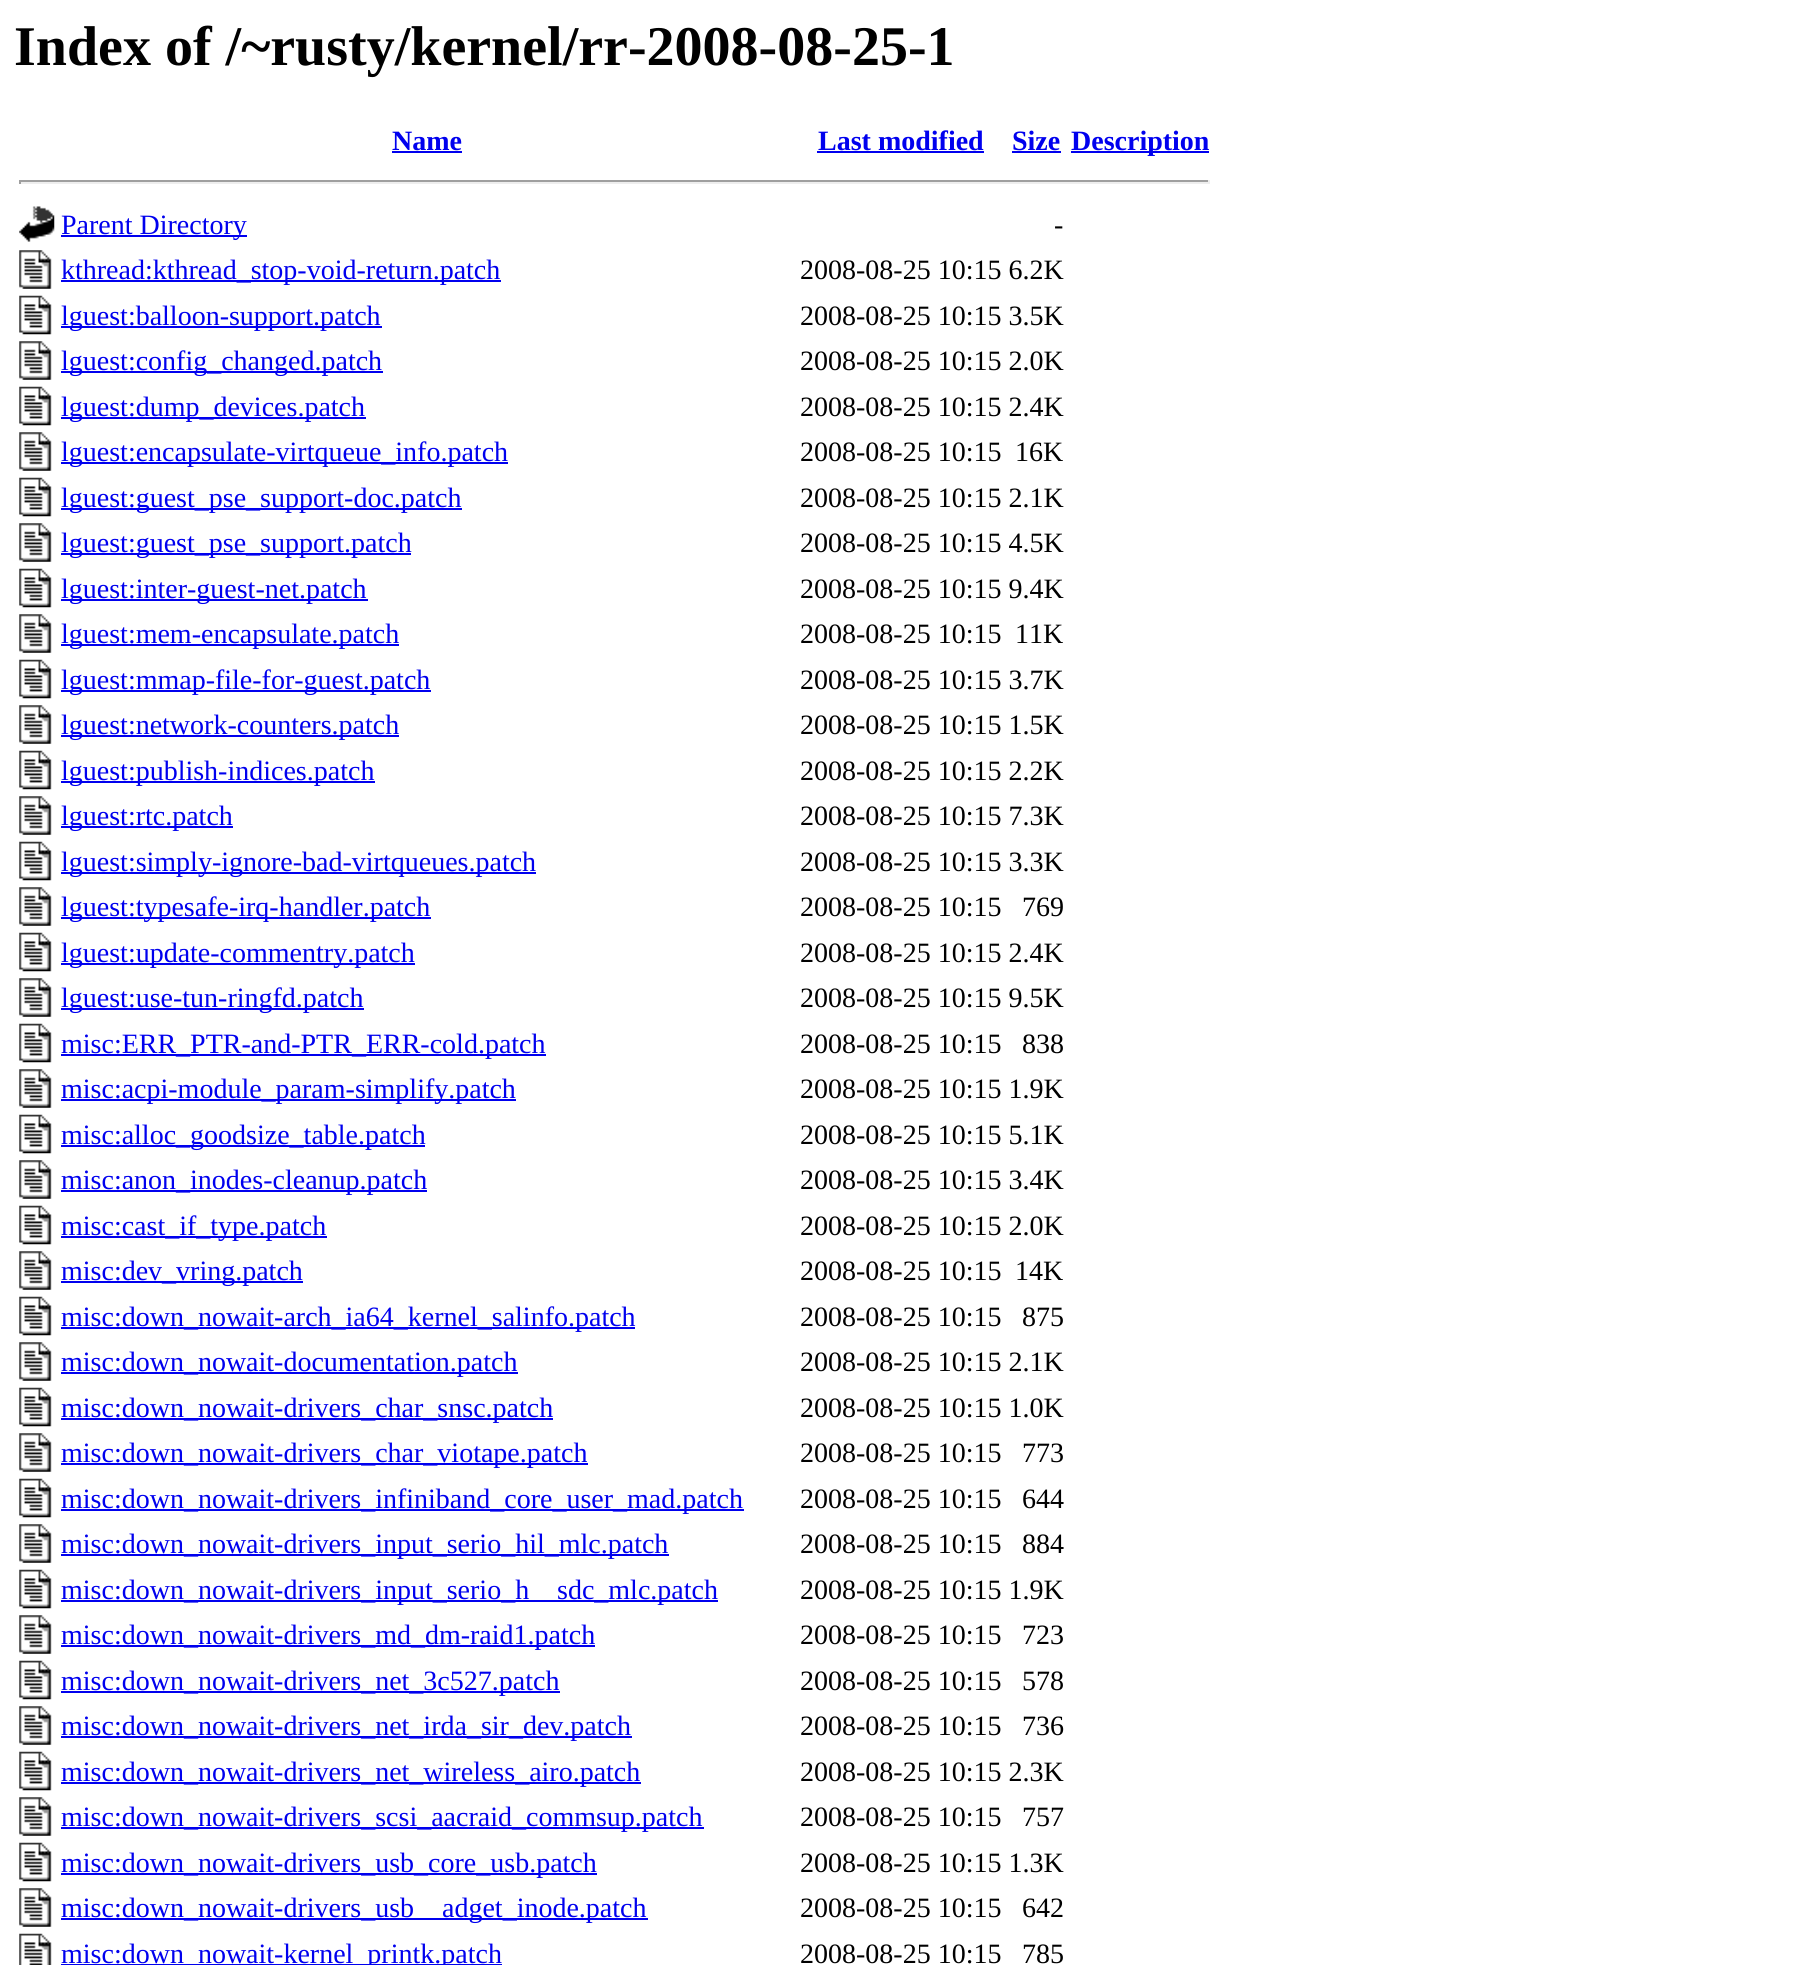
#include <cairo.h>
#include <math.h>
#include <stddef.h>

typedef struct { double x, y, w, h; unsigned color; } box_t;

static void ink(cairo_t *ctx, unsigned color) {
    cairo_set_source_rgb(ctx, (color >> 16) / 255.0, (color >> 8 & 255) / 255.0, (color & 255) / 255.0);
}

static void paste(cairo_t *ctx, const char *path, double x, double y, double w, double h) {
    cairo_surface_t *image = cairo_image_surface_create_from_png(path);
    cairo_save(ctx);
    cairo_set_source_surface(ctx, image, x, y);
    cairo_rectangle(ctx, x, y, w, h);
    cairo_fill(ctx);
    cairo_restore(ctx);
    cairo_surface_destroy(image);
}

int main(void) {
    cairo_surface_t *surface = cairo_image_surface_create(CAIRO_FORMAT_RGB24, 1819, 1965);
    cairo_t *ctx = cairo_create(surface);
    cairo_font_options_t *options = cairo_font_options_create();
    cairo_font_options_set_hint_metrics(options, CAIRO_HINT_METRICS_OFF);
    cairo_font_options_set_hint_style(options, CAIRO_HINT_STYLE_NONE);
    cairo_set_font_options(ctx, options);
    cairo_set_miter_limit(ctx, 4);
    ink(ctx, 0xFFFFFF);
    cairo_paint(ctx);
    cairo_select_font_face(ctx, "Liberation Serif", CAIRO_FONT_SLANT_NORMAL, CAIRO_FONT_WEIGHT_BOLD);
    cairo_set_font_size(ctx, 56);
    ink(ctx, 0x000000);
    cairo_move_to(ctx, 14, 65);
    cairo_show_text(ctx, "Index of /~rusty/kernel/rr-2008-08-25-1");
    cairo_set_font_size(ctx, 28);
    ink(ctx, 0x0000EE);
    cairo_move_to(ctx, 392, 150);
    cairo_show_text(ctx, "Name");
    cairo_rectangle(ctx, 392, 151, 70, 2);
    cairo_fill(ctx);
    cairo_move_to(ctx, 818, 150);
    cairo_show_text(ctx, "Last modified");
    cairo_rectangle(ctx, 817, 151, 167, 2);
    cairo_fill(ctx);
    cairo_move_to(ctx, 1012, 150);
    cairo_show_text(ctx, "Size");
    cairo_rectangle(ctx, 1012, 151, 49, 2);
    cairo_fill(ctx);
    cairo_rectangle(ctx, 1071, 151, 138, 2);
    cairo_fill(ctx);
    cairo_move_to(ctx, 1071, 150);
    cairo_show_text(ctx, "Description");
    {
        static const box_t items[] = {
            {19, 180, 1190, 2, 0x9F9F9F},
            {1208, 180, 2, 4, 0xEEEEEE},
            {19, 182, 1190, 2, 0xEEEEEE},
            {19, 180, 2, 4, 0x9F9F9F},
        };
        for (size_t i = 0; i < sizeof items / sizeof *items; i++) {
            ink(ctx, items[i].color);
            cairo_rectangle(ctx, items[i].x, items[i].y, items[i].w, items[i].h);
            cairo_fill(ctx);
        }
    }
    paste(ctx, "media/1.png", 19, 206, 36, 36);
    ink(ctx, 0x0000EE);
    cairo_rectangle(ctx, 61, 235, 186, 2);
    cairo_fill(ctx);
    cairo_select_font_face(ctx, "Liberation Serif", CAIRO_FONT_SLANT_NORMAL, CAIRO_FONT_WEIGHT_NORMAL);
    cairo_move_to(ctx, 61, 234);
    cairo_show_text(ctx, "Parent Directory");
    ink(ctx, 0x000000);
    cairo_move_to(ctx, 1054, 234);
    cairo_show_text(ctx, "-");
    paste(ctx, "media/2.png", 19, 250, 33, 39);
    ink(ctx, 0x0000EE);
    cairo_rectangle(ctx, 61, 280, 440, 2);
    cairo_fill(ctx);
    cairo_move_to(ctx, 61, 279);
    cairo_show_text(ctx, "kthread:kthread_stop-void-return.patch");
    ink(ctx, 0x000000);
    cairo_move_to(ctx, 800, 279);
    cairo_show_text(ctx, "2008-08-25 10:15 6.2K");
    paste(ctx, "media/3.png", 19, 295, 33, 40);
    ink(ctx, 0x0000EE);
    cairo_rectangle(ctx, 61, 326, 321, 2);
    cairo_fill(ctx);
    cairo_move_to(ctx, 61, 325);
    cairo_show_text(ctx, "lguest:balloon-support.patch");
    ink(ctx, 0x000000);
    cairo_move_to(ctx, 800, 325);
    cairo_show_text(ctx, "2008-08-25 10:15 3.5K");
    paste(ctx, "media/2.png", 19, 341, 33, 39);
    ink(ctx, 0x0000EE);
    cairo_rectangle(ctx, 61, 371, 322, 2);
    cairo_fill(ctx);
    cairo_move_to(ctx, 61, 370);
    cairo_show_text(ctx, "lguest:config_changed.patch");
    ink(ctx, 0x000000);
    cairo_move_to(ctx, 800, 370);
    cairo_show_text(ctx, "2008-08-25 10:15 2.0K");
    paste(ctx, "media/3.png", 19, 386, 33, 40);
    ink(ctx, 0x0000EE);
    cairo_rectangle(ctx, 61, 417, 305, 2);
    cairo_fill(ctx);
    cairo_move_to(ctx, 61, 416);
    cairo_show_text(ctx, "lguest:dump_devices.patch");
    ink(ctx, 0x000000);
    cairo_move_to(ctx, 800, 416);
    cairo_show_text(ctx, "2008-08-25 10:15 2.4K");
    paste(ctx, "media/2.png", 19, 432, 33, 39);
    ink(ctx, 0x0000EE);
    cairo_rectangle(ctx, 61, 462, 447, 2);
    cairo_fill(ctx);
    cairo_move_to(ctx, 61, 461);
    cairo_show_text(ctx, "lguest:encapsulate-virtqueue_info.patch");
    ink(ctx, 0x000000);
    cairo_move_to(ctx, 800, 461);
    cairo_show_text(ctx, "2008-08-25 10:15");
    cairo_move_to(ctx, 1015, 461);
    cairo_show_text(ctx, "16K");
    paste(ctx, "media/3.png", 19, 477, 33, 40);
    ink(ctx, 0x0000EE);
    cairo_rectangle(ctx, 61, 508, 401, 2);
    cairo_fill(ctx);
    cairo_move_to(ctx, 61, 507);
    cairo_show_text(ctx, "lguest:guest_pse_support-doc.patch");
    ink(ctx, 0x000000);
    cairo_move_to(ctx, 800, 507);
    cairo_show_text(ctx, "2008-08-25 10:15 2.1K");
    paste(ctx, "media/2.png", 19, 523, 33, 39);
    ink(ctx, 0x0000EE);
    cairo_rectangle(ctx, 61, 553, 350, 2);
    cairo_fill(ctx);
    cairo_move_to(ctx, 61, 552);
    cairo_show_text(ctx, "lguest:guest_pse_support.patch");
    ink(ctx, 0x000000);
    cairo_move_to(ctx, 800, 552);
    cairo_show_text(ctx, "2008-08-25 10:15 4.5K");
    paste(ctx, "media/3.png", 19, 568, 33, 40);
    ink(ctx, 0x0000EE);
    cairo_rectangle(ctx, 61, 599, 307, 2);
    cairo_fill(ctx);
    cairo_move_to(ctx, 61, 598);
    cairo_show_text(ctx, "lguest:inter-guest-net.patch");
    ink(ctx, 0x000000);
    cairo_move_to(ctx, 800, 598);
    cairo_show_text(ctx, "2008-08-25 10:15 9.4K");
    paste(ctx, "media/2.png", 19, 614, 33, 39);
    ink(ctx, 0x0000EE);
    cairo_rectangle(ctx, 61, 644, 338, 2);
    cairo_fill(ctx);
    cairo_move_to(ctx, 61, 643);
    cairo_show_text(ctx, "lguest:mem-encapsulate.patch");
    ink(ctx, 0x000000);
    cairo_move_to(ctx, 800, 643);
    cairo_show_text(ctx, "2008-08-25 10:15");
    cairo_move_to(ctx, 1015, 643);
    cairo_show_text(ctx, "11K");
    paste(ctx, "media/3.png", 19, 659, 33, 40);
    ink(ctx, 0x0000EE);
    cairo_rectangle(ctx, 61, 690, 370, 2);
    cairo_fill(ctx);
    cairo_move_to(ctx, 61, 689);
    cairo_show_text(ctx, "lguest:mmap-file-for-guest.patch");
    ink(ctx, 0x000000);
    cairo_move_to(ctx, 800, 689);
    cairo_show_text(ctx, "2008-08-25 10:15 3.7K");
    paste(ctx, "media/2.png", 19, 705, 33, 39);
    ink(ctx, 0x0000EE);
    cairo_rectangle(ctx, 61, 735, 338, 2);
    cairo_fill(ctx);
    cairo_move_to(ctx, 61, 734);
    cairo_show_text(ctx, "lguest:network-counters.patch");
    ink(ctx, 0x000000);
    cairo_move_to(ctx, 800, 734);
    cairo_show_text(ctx, "2008-08-25 10:15 1.5K");
    paste(ctx, "media/3.png", 19, 750, 33, 40);
    ink(ctx, 0x0000EE);
    cairo_rectangle(ctx, 61, 781, 314, 2);
    cairo_fill(ctx);
    cairo_move_to(ctx, 61, 780);
    cairo_show_text(ctx, "lguest:publish-indices.patch");
    ink(ctx, 0x000000);
    cairo_move_to(ctx, 800, 780);
    cairo_show_text(ctx, "2008-08-25 10:15 2.2K");
    paste(ctx, "media/2.png", 19, 796, 33, 39);
    ink(ctx, 0x0000EE);
    cairo_rectangle(ctx, 61, 826, 172, 2);
    cairo_fill(ctx);
    cairo_move_to(ctx, 61, 825);
    cairo_show_text(ctx, "lguest:rtc.patch");
    ink(ctx, 0x000000);
    cairo_move_to(ctx, 800, 825);
    cairo_show_text(ctx, "2008-08-25 10:15 7.3K");
    paste(ctx, "media/3.png", 19, 841, 33, 40);
    ink(ctx, 0x0000EE);
    cairo_rectangle(ctx, 61, 872, 475, 2);
    cairo_fill(ctx);
    cairo_move_to(ctx, 61, 871);
    cairo_show_text(ctx, "lguest:simply-ignore-bad-virtqueues.patch");
    ink(ctx, 0x000000);
    cairo_move_to(ctx, 800, 871);
    cairo_show_text(ctx, "2008-08-25 10:15 3.3K");
    paste(ctx, "media/2.png", 19, 887, 33, 39);
    ink(ctx, 0x0000EE);
    cairo_rectangle(ctx, 61, 917, 370, 2);
    cairo_fill(ctx);
    cairo_move_to(ctx, 61, 916);
    cairo_show_text(ctx, "lguest:typesafe-irq-handler.patch");
    ink(ctx, 0x000000);
    cairo_move_to(ctx, 800, 916);
    cairo_show_text(ctx, "2008-08-25 10:15");
    cairo_move_to(ctx, 1022, 916);
    cairo_show_text(ctx, "769");
    paste(ctx, "media/3.png", 19, 932, 33, 40);
    ink(ctx, 0x0000EE);
    cairo_rectangle(ctx, 61, 963, 354, 2);
    cairo_fill(ctx);
    cairo_move_to(ctx, 61, 962);
    cairo_show_text(ctx, "lguest:update-commentry.patch");
    ink(ctx, 0x000000);
    cairo_move_to(ctx, 800, 962);
    cairo_show_text(ctx, "2008-08-25 10:15 2.4K");
    paste(ctx, "media/2.png", 19, 978, 33, 39);
    ink(ctx, 0x0000EE);
    cairo_rectangle(ctx, 61, 1008, 303, 2);
    cairo_fill(ctx);
    cairo_move_to(ctx, 61, 1007);
    cairo_show_text(ctx, "lguest:use-tun-ringfd.patch");
    ink(ctx, 0x000000);
    cairo_move_to(ctx, 800, 1007);
    cairo_show_text(ctx, "2008-08-25 10:15 9.5K");
    paste(ctx, "media/3.png", 19, 1023, 33, 40);
    ink(ctx, 0x0000EE);
    cairo_rectangle(ctx, 61, 1054, 485, 2);
    cairo_fill(ctx);
    cairo_move_to(ctx, 61, 1053);
    cairo_show_text(ctx, "misc:ERR_PTR-and-PTR_ERR-cold.patch");
    ink(ctx, 0x000000);
    cairo_move_to(ctx, 800, 1053);
    cairo_show_text(ctx, "2008-08-25 10:15");
    cairo_move_to(ctx, 1022, 1053);
    cairo_show_text(ctx, "838");
    paste(ctx, "media/2.png", 19, 1069, 33, 39);
    ink(ctx, 0x0000EE);
    cairo_rectangle(ctx, 61, 1099, 455, 2);
    cairo_fill(ctx);
    cairo_move_to(ctx, 61, 1098);
    cairo_show_text(ctx, "misc:acpi-module_param-simplify.patch");
    ink(ctx, 0x000000);
    cairo_move_to(ctx, 800, 1098);
    cairo_show_text(ctx, "2008-08-25 10:15 1.9K");
    paste(ctx, "media/3.png", 19, 1114, 33, 40);
    ink(ctx, 0x0000EE);
    cairo_rectangle(ctx, 61, 1145, 364, 2);
    cairo_fill(ctx);
    cairo_move_to(ctx, 61, 1144);
    cairo_show_text(ctx, "misc:alloc_goodsize_table.patch");
    ink(ctx, 0x000000);
    cairo_move_to(ctx, 800, 1144);
    cairo_show_text(ctx, "2008-08-25 10:15 5.1K");
    paste(ctx, "media/2.png", 19, 1160, 33, 39);
    ink(ctx, 0x0000EE);
    cairo_rectangle(ctx, 61, 1190, 366, 2);
    cairo_fill(ctx);
    cairo_move_to(ctx, 61, 1189);
    cairo_show_text(ctx, "misc:anon_inodes-cleanup.patch");
    ink(ctx, 0x000000);
    cairo_move_to(ctx, 800, 1189);
    cairo_show_text(ctx, "2008-08-25 10:15 3.4K");
    paste(ctx, "media/3.png", 19, 1205, 33, 40);
    ink(ctx, 0x0000EE);
    cairo_rectangle(ctx, 61, 1236, 266, 2);
    cairo_fill(ctx);
    cairo_move_to(ctx, 61, 1235);
    cairo_show_text(ctx, "misc:cast_if_type.patch");
    ink(ctx, 0x000000);
    cairo_move_to(ctx, 800, 1235);
    cairo_show_text(ctx, "2008-08-25 10:15 2.0K");
    paste(ctx, "media/2.png", 19, 1251, 33, 39);
    ink(ctx, 0x0000EE);
    cairo_rectangle(ctx, 61, 1281, 242, 2);
    cairo_fill(ctx);
    cairo_move_to(ctx, 61, 1280);
    cairo_show_text(ctx, "misc:dev_vring.patch");
    ink(ctx, 0x000000);
    cairo_move_to(ctx, 800, 1280);
    cairo_show_text(ctx, "2008-08-25 10:15");
    cairo_move_to(ctx, 1015, 1280);
    cairo_show_text(ctx, "14K");
    paste(ctx, "media/3.png", 19, 1296, 33, 40);
    ink(ctx, 0x0000EE);
    cairo_rectangle(ctx, 61, 1327, 574, 2);
    cairo_fill(ctx);
    cairo_move_to(ctx, 61, 1326);
    cairo_show_text(ctx, "misc:down_nowait-arch_ia64_kernel_salinfo.patch");
    ink(ctx, 0x000000);
    cairo_move_to(ctx, 800, 1326);
    cairo_show_text(ctx, "2008-08-25 10:15");
    cairo_move_to(ctx, 1022, 1326);
    cairo_show_text(ctx, "875");
    paste(ctx, "media/2.png", 19, 1342, 33, 39);
    ink(ctx, 0x0000EE);
    cairo_rectangle(ctx, 61, 1372, 457, 2);
    cairo_fill(ctx);
    cairo_move_to(ctx, 61, 1371);
    cairo_show_text(ctx, "misc:down_nowait-documentation.patch");
    ink(ctx, 0x000000);
    cairo_move_to(ctx, 800, 1371);
    cairo_show_text(ctx, "2008-08-25 10:15 2.1K");
    paste(ctx, "media/3.png", 19, 1387, 33, 40);
    ink(ctx, 0x0000EE);
    cairo_rectangle(ctx, 61, 1418, 492, 2);
    cairo_fill(ctx);
    cairo_move_to(ctx, 61, 1417);
    cairo_show_text(ctx, "misc:down_nowait-drivers_char_snsc.patch");
    ink(ctx, 0x000000);
    cairo_move_to(ctx, 800, 1417);
    cairo_show_text(ctx, "2008-08-25 10:15 1.0K");
    paste(ctx, "media/2.png", 19, 1433, 33, 39);
    ink(ctx, 0x0000EE);
    cairo_rectangle(ctx, 61, 1463, 527, 2);
    cairo_fill(ctx);
    cairo_move_to(ctx, 61, 1462);
    cairo_show_text(ctx, "misc:down_nowait-drivers_char_viotape.patch");
    ink(ctx, 0x000000);
    cairo_move_to(ctx, 800, 1462);
    cairo_show_text(ctx, "2008-08-25 10:15");
    cairo_move_to(ctx, 1022, 1462);
    cairo_show_text(ctx, "773");
    paste(ctx, "media/3.png", 19, 1478, 33, 40);
    ink(ctx, 0x0000EE);
    cairo_rectangle(ctx, 61, 1509, 683, 2);
    cairo_fill(ctx);
    cairo_move_to(ctx, 61, 1508);
    cairo_show_text(ctx, "misc:down_nowait-drivers_infiniband_core_user_mad.patch");
    ink(ctx, 0x000000);
    cairo_move_to(ctx, 800, 1508);
    cairo_show_text(ctx, "2008-08-25 10:15");
    cairo_move_to(ctx, 1022, 1508);
    cairo_show_text(ctx, "644");
    paste(ctx, "media/2.png", 19, 1524, 33, 39);
    ink(ctx, 0x0000EE);
    cairo_rectangle(ctx, 61, 1554, 608, 2);
    cairo_fill(ctx);
    cairo_move_to(ctx, 61, 1553);
    cairo_show_text(ctx, "misc:down_nowait-drivers_input_serio_hil_mlc.patch");
    ink(ctx, 0x000000);
    cairo_move_to(ctx, 800, 1553);
    cairo_show_text(ctx, "2008-08-25 10:15");
    cairo_move_to(ctx, 1022, 1553);
    cairo_show_text(ctx, "884");
    paste(ctx, "media/3.png", 19, 1569, 33, 40);
    ink(ctx, 0x0000EE);
    cairo_rectangle(ctx, 61, 1600, 657, 2);
    cairo_fill(ctx);
    cairo_move_to(ctx, 61, 1599);
    cairo_show_text(ctx, "misc:down_nowait-drivers_input_serio_h");
    cairo_move_to(ctx, 557, 1599);
    cairo_show_text(ctx, "sdc_mlc.patch");
    ink(ctx, 0x000000);
    cairo_move_to(ctx, 800, 1599);
    cairo_show_text(ctx, "2008-08-25 10:15 1.9K");
    paste(ctx, "media/2.png", 19, 1615, 33, 39);
    ink(ctx, 0x0000EE);
    cairo_rectangle(ctx, 61, 1645, 534, 2);
    cairo_fill(ctx);
    cairo_move_to(ctx, 61, 1644);
    cairo_show_text(ctx, "misc:down_nowait-drivers_md_dm-raid1.patch");
    ink(ctx, 0x000000);
    cairo_move_to(ctx, 800, 1644);
    cairo_show_text(ctx, "2008-08-25 10:15");
    cairo_move_to(ctx, 1022, 1644);
    cairo_show_text(ctx, "723");
    paste(ctx, "media/3.png", 19, 1660, 33, 40);
    ink(ctx, 0x0000EE);
    cairo_rectangle(ctx, 61, 1691, 499, 2);
    cairo_fill(ctx);
    cairo_move_to(ctx, 61, 1690);
    cairo_show_text(ctx, "misc:down_nowait-drivers_net_3c527.patch");
    ink(ctx, 0x000000);
    cairo_move_to(ctx, 800, 1690);
    cairo_show_text(ctx, "2008-08-25 10:15");
    cairo_move_to(ctx, 1022, 1690);
    cairo_show_text(ctx, "578");
    paste(ctx, "media/2.png", 19, 1706, 33, 39);
    ink(ctx, 0x0000EE);
    cairo_rectangle(ctx, 61, 1736, 571, 2);
    cairo_fill(ctx);
    cairo_move_to(ctx, 61, 1735);
    cairo_show_text(ctx, "misc:down_nowait-drivers_net_irda_sir_dev.patch");
    ink(ctx, 0x000000);
    cairo_move_to(ctx, 800, 1735);
    cairo_show_text(ctx, "2008-08-25 10:15");
    cairo_move_to(ctx, 1022, 1735);
    cairo_show_text(ctx, "736");
    paste(ctx, "media/3.png", 19, 1751, 33, 40);
    ink(ctx, 0x0000EE);
    cairo_rectangle(ctx, 61, 1782, 580, 2);
    cairo_fill(ctx);
    cairo_move_to(ctx, 61, 1781);
    cairo_show_text(ctx, "misc:down_nowait-drivers_net_wireless_airo.patch");
    ink(ctx, 0x000000);
    cairo_move_to(ctx, 800, 1781);
    cairo_show_text(ctx, "2008-08-25 10:15 2.3K");
    paste(ctx, "media/4.png", 19, 1797, 33, 39);
    ink(ctx, 0x0000EE);
    cairo_rectangle(ctx, 61, 1827, 643, 2);
    cairo_fill(ctx);
    cairo_move_to(ctx, 61, 1826);
    cairo_show_text(ctx, "misc:down_nowait-drivers_scsi_aacraid_commsup.patch");
    ink(ctx, 0x000000);
    cairo_move_to(ctx, 800, 1826);
    cairo_show_text(ctx, "2008-08-25 10:15");
    cairo_move_to(ctx, 1022, 1826);
    cairo_show_text(ctx, "757");
    paste(ctx, "media/3.png", 19, 1842, 33, 40);
    ink(ctx, 0x0000EE);
    cairo_rectangle(ctx, 61, 1873, 536, 2);
    cairo_fill(ctx);
    cairo_move_to(ctx, 61, 1872);
    cairo_show_text(ctx, "misc:down_nowait-drivers_usb_core_usb.patch");
    ink(ctx, 0x000000);
    cairo_move_to(ctx, 800, 1872);
    cairo_show_text(ctx, "2008-08-25 10:15 1.3K");
    paste(ctx, "media/5.png", 19, 1888, 33, 39);
    ink(ctx, 0x0000EE);
    cairo_rectangle(ctx, 61, 1918, 587, 2);
    cairo_fill(ctx);
    cairo_move_to(ctx, 61, 1917);
    cairo_show_text(ctx, "misc:down_nowait-drivers_usb");
    cairo_move_to(ctx, 442, 1917);
    cairo_show_text(ctx, "adget_inode.patch");
    ink(ctx, 0x000000);
    cairo_move_to(ctx, 800, 1917);
    cairo_show_text(ctx, "2008-08-25 10:15");
    cairo_move_to(ctx, 1022, 1917);
    cairo_show_text(ctx, "642");
    paste(ctx, "media/6.png", 19, 1933, 33, 32);
    ink(ctx, 0x0000EE);
    cairo_rectangle(ctx, 61, 1964, 441, 1);
    cairo_fill(ctx);
    cairo_move_to(ctx, 61, 1963);
    cairo_show_text(ctx, "misc:down_nowait-kernel_printk.patch");
    ink(ctx, 0x000000);
    cairo_move_to(ctx, 800, 1963);
    cairo_show_text(ctx, "2008-08-25 10:15");
    cairo_move_to(ctx, 1022, 1963);
    cairo_show_text(ctx, "785");
    cairo_surface_write_to_png(surface, "image.png");
    cairo_font_options_destroy(options);
    cairo_destroy(ctx);
    cairo_surface_destroy(surface);
    return 0;
}
